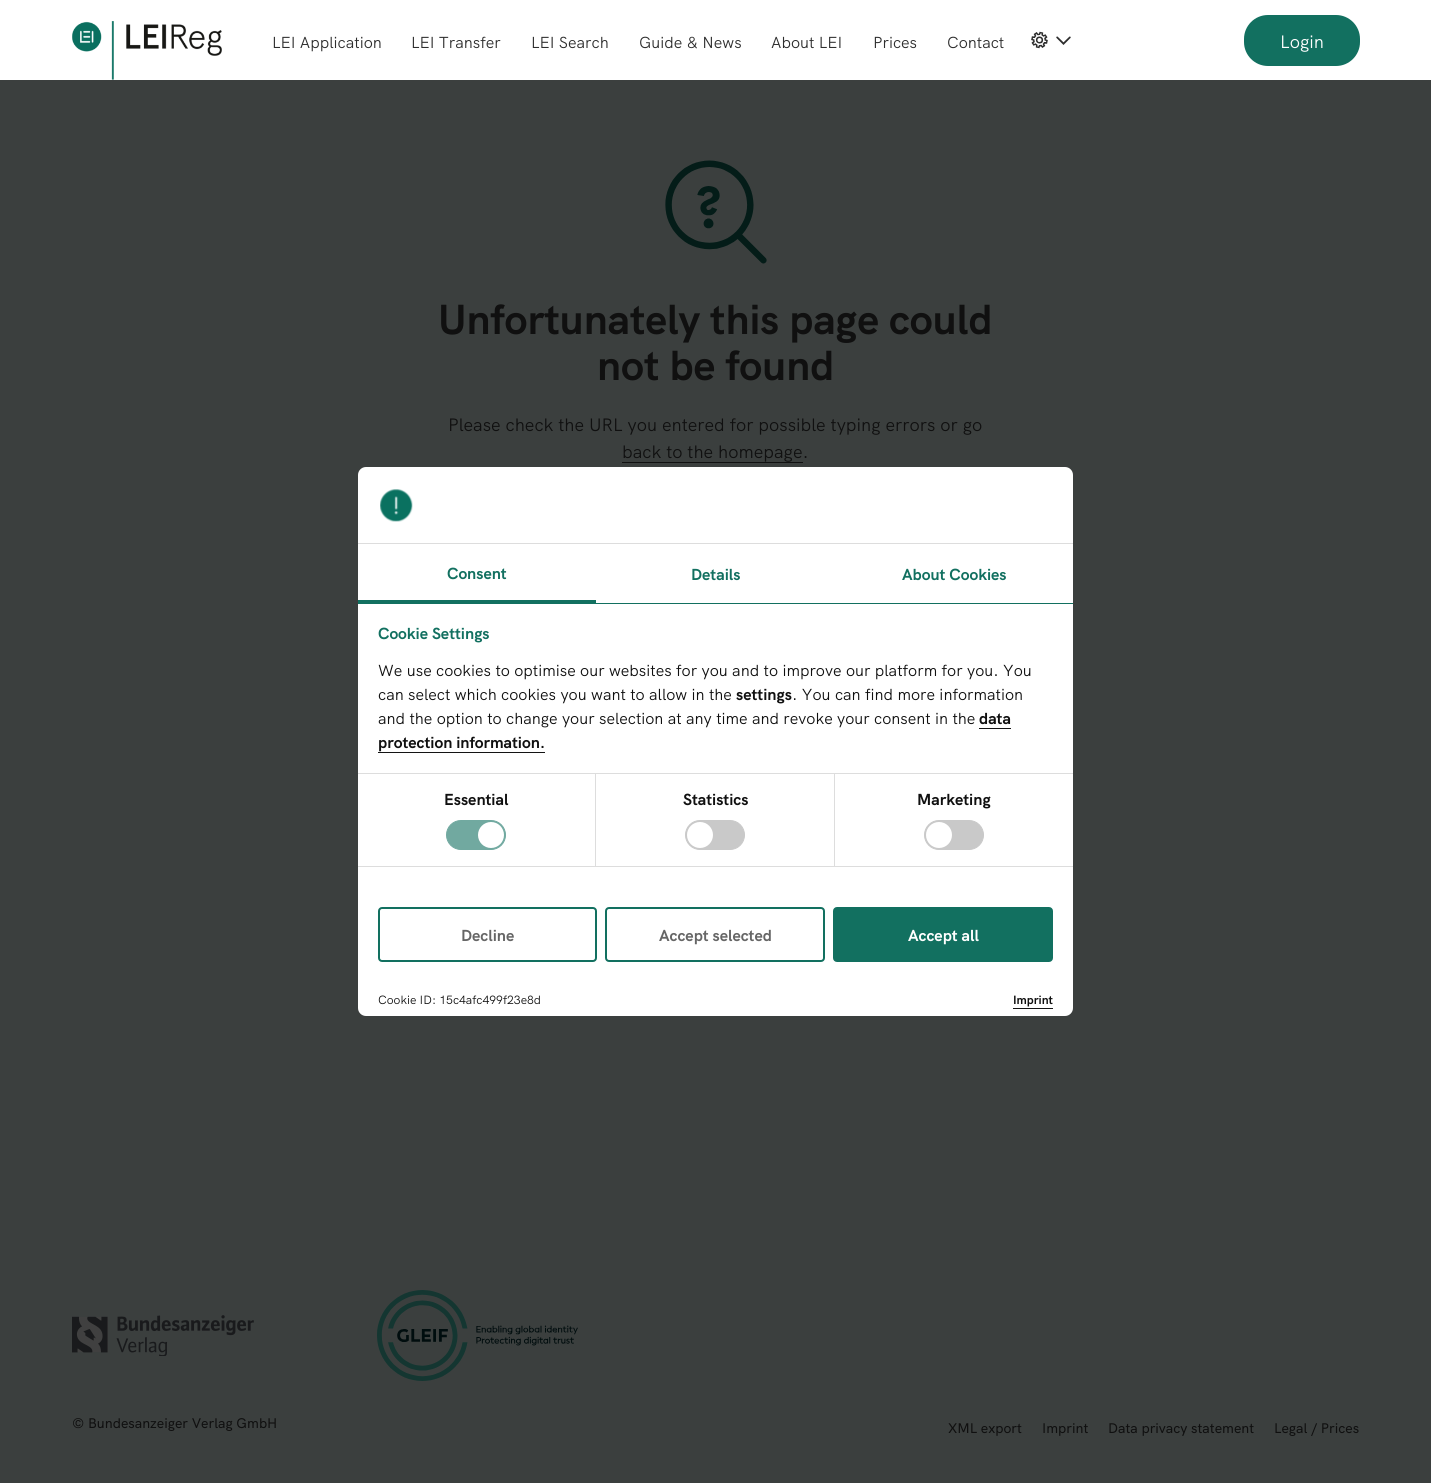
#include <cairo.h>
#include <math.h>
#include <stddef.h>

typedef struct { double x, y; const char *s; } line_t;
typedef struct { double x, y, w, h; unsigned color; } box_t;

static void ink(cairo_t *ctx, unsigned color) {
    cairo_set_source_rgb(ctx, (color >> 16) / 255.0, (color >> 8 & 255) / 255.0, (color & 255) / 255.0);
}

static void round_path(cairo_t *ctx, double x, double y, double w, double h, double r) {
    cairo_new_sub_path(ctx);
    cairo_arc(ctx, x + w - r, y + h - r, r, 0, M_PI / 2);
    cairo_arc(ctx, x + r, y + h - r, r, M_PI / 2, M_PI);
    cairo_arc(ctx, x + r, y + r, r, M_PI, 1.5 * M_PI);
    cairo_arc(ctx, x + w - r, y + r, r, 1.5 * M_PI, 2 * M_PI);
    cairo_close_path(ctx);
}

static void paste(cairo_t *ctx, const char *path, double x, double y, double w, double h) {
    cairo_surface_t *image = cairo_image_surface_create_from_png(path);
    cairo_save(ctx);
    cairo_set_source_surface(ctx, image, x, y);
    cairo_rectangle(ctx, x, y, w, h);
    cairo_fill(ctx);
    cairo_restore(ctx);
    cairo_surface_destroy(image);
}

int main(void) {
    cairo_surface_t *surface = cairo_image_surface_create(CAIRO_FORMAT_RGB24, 1431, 1483);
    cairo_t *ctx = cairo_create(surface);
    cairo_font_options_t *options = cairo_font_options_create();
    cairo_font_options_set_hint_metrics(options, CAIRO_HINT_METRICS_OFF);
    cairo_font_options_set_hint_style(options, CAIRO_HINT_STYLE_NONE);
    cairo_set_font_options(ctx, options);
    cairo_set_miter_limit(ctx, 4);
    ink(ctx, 0x3B3F3E);
    cairo_paint(ctx);
    ink(ctx, 0xFFFFFF);
    cairo_rectangle(ctx, 0, 0, 1431, 80);
    cairo_fill(ctx);
    paste(ctx, "media/1.png", 72, 21, 150, 59);
    cairo_select_font_face(ctx, "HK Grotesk", CAIRO_FONT_SLANT_NORMAL, CAIRO_FONT_WEIGHT_NORMAL);
    cairo_set_font_size(ctx, 16);
    ink(ctx, 0x2E2E2E);
    {
        static const line_t items[] = {
            {272, 48, "LEI Application"},
            {411, 48, "LEI Transfer"},
            {531, 48, "LEI Search"},
            {639, 48, "Guide & News"},
            {771, 48, "About LEI"},
            {873, 48, "Prices"},
            {947, 48, "Contact"},
        };
        for (size_t i = 0; i < sizeof items / sizeof *items; i++) {
            cairo_move_to(ctx, items[i].x, items[i].y);
            cairo_show_text(ctx, items[i].s);
        }
    }
    paste(ctx, "media/2.png", 1031, 31, 17, 18);
    paste(ctx, "media/3.png", 1056, 36, 15, 9);
    ink(ctx, 0x127060);
    round_path(ctx, 1244, 15, 116, 51, 24);
    cairo_fill(ctx);
    cairo_set_font_size(ctx, 18);
    ink(ctx, 0xFFFFFF);
    cairo_move_to(ctx, 1280, 48);
    cairo_show_text(ctx, "Login");
    paste(ctx, "media/4.png", 665, 160, 102, 104);
    cairo_select_font_face(ctx, "HK Grotesk", CAIRO_FONT_SLANT_NORMAL, CAIRO_FONT_WEIGHT_BOLD);
    cairo_set_font_size(ctx, 42);
    ink(ctx, 0x101010);
    cairo_move_to(ctx, 438, 334);
    cairo_show_text(ctx, "Unfortunately this page could");
    cairo_move_to(ctx, 597, 380);
    cairo_show_text(ctx, "not be found");
    cairo_select_font_face(ctx, "HK Grotesk", CAIRO_FONT_SLANT_NORMAL, CAIRO_FONT_WEIGHT_NORMAL);
    cairo_set_font_size(ctx, 18);
    cairo_move_to(ctx, 448, 431);
    cairo_show_text(ctx, "Please check the URL you entered for possible typing errors or go");
    cairo_move_to(ctx, 622, 458);
    cairo_show_text(ctx, "back to the homepage.");
    cairo_rectangle(ctx, 622, 462, 181, 1);
    cairo_fill(ctx);
    ink(ctx, 0xFFFFFF);
    round_path(ctx, 358, 467, 715, 549, 8);
    cairo_fill(ctx);
    ink(ctx, 0xDDDDDD);
    cairo_rectangle(ctx, 358, 543, 715, 1);
    cairo_fill(ctx);
    paste(ctx, "media/5.png", 380, 489, 33, 33);
    ink(ctx, 0x127060);
    cairo_rectangle(ctx, 358, 603, 715, 1);
    cairo_fill(ctx);
    cairo_rectangle(ctx, 358, 600, 238, 3);
    cairo_fill(ctx);
    cairo_select_font_face(ctx, "HK Grotesk", CAIRO_FONT_SLANT_NORMAL, CAIRO_FONT_WEIGHT_BOLD);
    cairo_set_font_size(ctx, 16);
    {
        static const line_t items[] = {
            {447, 579, "Consent"},
            {691, 580, "Details"},
            {902, 580, "About Cookies"},
        };
        for (size_t i = 0; i < sizeof items / sizeof *items; i++) {
            cairo_move_to(ctx, items[i].x, items[i].y);
            cairo_show_text(ctx, items[i].s);
        }
    }
    ink(ctx, 0xDDDDDD);
    cairo_rectangle(ctx, 358, 773, 715, 1);
    cairo_fill(ctx);
    ink(ctx, 0x127060);
    cairo_move_to(ctx, 378, 639);
    cairo_show_text(ctx, "Cookie Settings");
    cairo_select_font_face(ctx, "HK Grotesk", CAIRO_FONT_SLANT_NORMAL, CAIRO_FONT_WEIGHT_NORMAL);
    ink(ctx, 0x101010);
    cairo_move_to(ctx, 378, 676);
    cairo_show_text(ctx, "We use cookies to optimise our websites for you and to improve our platform for you. You");
    cairo_move_to(ctx, 378, 700);
    cairo_show_text(ctx, "can select which cookies you want to allow in the");
    cairo_select_font_face(ctx, "HK Grotesk", CAIRO_FONT_SLANT_NORMAL, CAIRO_FONT_WEIGHT_BOLD);
    cairo_move_to(ctx, 736, 700);
    cairo_show_text(ctx, "settings");
    cairo_select_font_face(ctx, "HK Grotesk", CAIRO_FONT_SLANT_NORMAL, CAIRO_FONT_WEIGHT_NORMAL);
    cairo_move_to(ctx, 792, 700);
    cairo_show_text(ctx, ". You can find more information");
    cairo_move_to(ctx, 378, 724);
    cairo_show_text(ctx, "and the option to change your selection at any time and revoke your consent in the");
    cairo_select_font_face(ctx, "HK Grotesk", CAIRO_FONT_SLANT_NORMAL, CAIRO_FONT_WEIGHT_BOLD);
    cairo_move_to(ctx, 979, 724);
    cairo_show_text(ctx, "data");
    ink(ctx, 0x141414);
    cairo_rectangle(ctx, 979, 728, 32, 1);
    cairo_fill(ctx);
    ink(ctx, 0x101010);
    cairo_move_to(ctx, 378, 748);
    cairo_show_text(ctx, "protection information.");
    {
        static const box_t items[] = {
            {378, 752, 167, 1, 0x141414},
            {358, 866, 715, 1, 0xDDDDDD},
            {595, 774, 1, 92, 0xDDDDDD},
        };
        for (size_t i = 0; i < sizeof items / sizeof *items; i++) {
            ink(ctx, items[i].color);
            cairo_rectangle(ctx, items[i].x, items[i].y, items[i].w, items[i].h);
            cairo_fill(ctx);
        }
    }
    ink(ctx, 0x101010);
    cairo_move_to(ctx, 444, 805);
    cairo_show_text(ctx, "Essential");
    ink(ctx, 0x71A9A0);
    round_path(ctx, 446.5, 820.5, 59, 29, 14.5);
    cairo_fill_preserve(ctx);
    cairo_set_line_width(ctx, 1);
    cairo_stroke(ctx);
    ink(ctx, 0xFFFFFF);
    cairo_arc(ctx, 491, 835, 13, 0, 2 * M_PI);
    cairo_fill(ctx);
    ink(ctx, 0xDDDDDD);
    cairo_rectangle(ctx, 834, 774, 1, 92);
    cairo_fill(ctx);
    ink(ctx, 0x101010);
    cairo_move_to(ctx, 683, 805);
    cairo_show_text(ctx, "Statistics");
    ink(ctx, 0xC9C9C9);
    round_path(ctx, 685.5, 820.5, 59, 29, 14.5);
    cairo_fill_preserve(ctx);
    cairo_stroke(ctx);
    ink(ctx, 0xFFFFFF);
    cairo_arc(ctx, 700, 835, 13, 0, 2 * M_PI);
    cairo_fill(ctx);
    ink(ctx, 0x101010);
    cairo_move_to(ctx, 917, 805);
    cairo_show_text(ctx, "Marketing");
    ink(ctx, 0xC9C9C9);
    round_path(ctx, 924.5, 820.5, 59, 29, 14.5);
    cairo_fill_preserve(ctx);
    cairo_stroke(ctx);
    ink(ctx, 0xFFFFFF);
    cairo_arc(ctx, 939, 835, 13, 0, 2 * M_PI);
    cairo_fill(ctx);
    round_path(ctx, 379, 908, 217, 53, 3);
    ink(ctx, 0x127060);
    cairo_set_line_width(ctx, 2);
    cairo_stroke(ctx);
    ink(ctx, 0x666666);
    cairo_move_to(ctx, 461, 941);
    cairo_show_text(ctx, "Decline");
    round_path(ctx, 606, 908, 218, 53, 3);
    ink(ctx, 0x127060);
    cairo_stroke(ctx);
    ink(ctx, 0x666666);
    cairo_move_to(ctx, 659, 941);
    cairo_show_text(ctx, "Accept selected");
    ink(ctx, 0x127060);
    round_path(ctx, 834, 908, 218, 53, 3);
    cairo_fill_preserve(ctx);
    cairo_stroke(ctx);
    ink(ctx, 0xFFFFFF);
    cairo_move_to(ctx, 908, 941);
    cairo_show_text(ctx, "Accept all");
    cairo_select_font_face(ctx, "HK Grotesk", CAIRO_FONT_SLANT_NORMAL, CAIRO_FONT_WEIGHT_NORMAL);
    cairo_set_font_size(ctx, 12);
    ink(ctx, 0x101010);
    cairo_move_to(ctx, 378, 1004);
    cairo_show_text(ctx, "Cookie ID: 15c4afc499f23e8d");
    cairo_select_font_face(ctx, "HK Grotesk", CAIRO_FONT_SLANT_NORMAL, CAIRO_FONT_WEIGHT_BOLD);
    cairo_move_to(ctx, 1013, 1004);
    cairo_show_text(ctx, "Imprint");
    ink(ctx, 0x141414);
    cairo_rectangle(ctx, 1013, 1008, 40, 1);
    cairo_fill(ctx);
    paste(ctx, "media/6.png", 72, 1315, 182, 41);
    paste(ctx, "media/7.png", 377, 1290, 201, 91);
    cairo_select_font_face(ctx, "HK Grotesk Medium", CAIRO_FONT_SLANT_NORMAL, CAIRO_FONT_WEIGHT_NORMAL);
    cairo_set_font_size(ctx, 14);
    ink(ctx, 0x101010);
    {
        static const line_t items[] = {
            {72, 1428, "© Bundesanzeiger Verlag GmbH"},
            {948, 1433, "XML export"},
            {1042, 1433, "Imprint"},
            {1108, 1433, "Data privacy statement"},
            {1274, 1433, "Legal / Prices"},
        };
        for (size_t i = 0; i < sizeof items / sizeof *items; i++) {
            cairo_move_to(ctx, items[i].x, items[i].y);
            cairo_show_text(ctx, items[i].s);
        }
    }
    cairo_surface_write_to_png(surface, "image.png");
    cairo_font_options_destroy(options);
    cairo_destroy(ctx);
    cairo_surface_destroy(surface);
    return 0;
}
